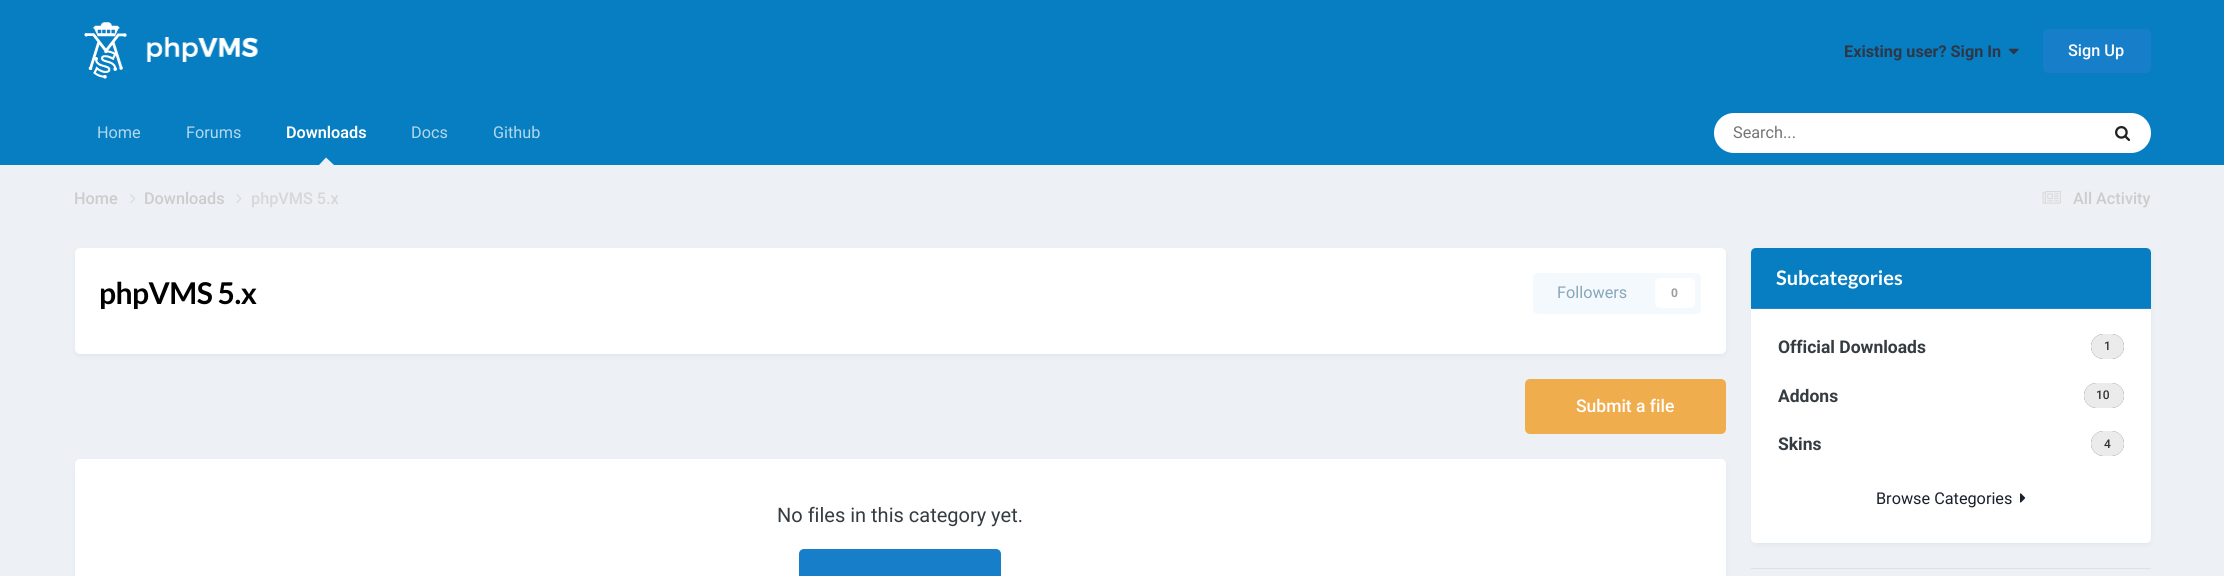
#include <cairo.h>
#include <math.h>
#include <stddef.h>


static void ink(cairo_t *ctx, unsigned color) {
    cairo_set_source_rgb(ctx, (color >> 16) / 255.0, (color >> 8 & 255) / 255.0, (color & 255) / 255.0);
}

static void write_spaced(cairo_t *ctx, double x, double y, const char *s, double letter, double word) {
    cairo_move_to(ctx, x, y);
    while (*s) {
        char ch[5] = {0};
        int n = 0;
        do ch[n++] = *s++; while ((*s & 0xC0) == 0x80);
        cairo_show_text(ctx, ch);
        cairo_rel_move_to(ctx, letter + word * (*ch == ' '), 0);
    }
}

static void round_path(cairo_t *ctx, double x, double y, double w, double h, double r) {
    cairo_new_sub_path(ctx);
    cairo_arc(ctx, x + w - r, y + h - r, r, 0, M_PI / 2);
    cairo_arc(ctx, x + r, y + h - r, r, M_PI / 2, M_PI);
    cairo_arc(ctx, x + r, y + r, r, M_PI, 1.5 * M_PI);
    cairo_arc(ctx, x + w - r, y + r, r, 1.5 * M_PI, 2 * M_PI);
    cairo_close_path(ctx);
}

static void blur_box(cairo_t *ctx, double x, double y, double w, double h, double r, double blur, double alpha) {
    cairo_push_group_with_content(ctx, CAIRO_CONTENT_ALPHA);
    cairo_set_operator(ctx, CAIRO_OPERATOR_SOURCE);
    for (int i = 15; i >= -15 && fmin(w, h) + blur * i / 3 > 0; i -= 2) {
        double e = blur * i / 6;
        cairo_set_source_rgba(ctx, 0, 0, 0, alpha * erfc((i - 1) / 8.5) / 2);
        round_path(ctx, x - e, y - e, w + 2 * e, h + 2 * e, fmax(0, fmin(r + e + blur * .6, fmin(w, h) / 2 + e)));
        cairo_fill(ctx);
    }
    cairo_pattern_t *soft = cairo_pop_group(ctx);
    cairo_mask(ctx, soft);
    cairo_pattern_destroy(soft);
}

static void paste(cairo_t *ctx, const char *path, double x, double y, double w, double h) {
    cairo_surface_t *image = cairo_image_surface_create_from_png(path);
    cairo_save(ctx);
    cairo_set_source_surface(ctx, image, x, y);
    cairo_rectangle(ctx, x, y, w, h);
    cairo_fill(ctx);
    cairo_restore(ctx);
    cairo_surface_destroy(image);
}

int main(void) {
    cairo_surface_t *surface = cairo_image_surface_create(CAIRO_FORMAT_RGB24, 2224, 576);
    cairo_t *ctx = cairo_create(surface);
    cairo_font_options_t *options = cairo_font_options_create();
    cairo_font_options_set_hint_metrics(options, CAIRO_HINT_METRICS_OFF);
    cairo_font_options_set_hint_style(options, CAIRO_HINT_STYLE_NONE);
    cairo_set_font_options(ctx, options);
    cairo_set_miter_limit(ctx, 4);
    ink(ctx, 0xEDF0F4);
    cairo_paint(ctx);
    ink(ctx, 0x067EC1);
    cairo_rectangle(ctx, 0, 0, 2224, 165);
    cairo_fill(ctx);
    paste(ctx, "media/1.png", 84, 22, 174, 57);
    cairo_select_font_face(ctx, "Roboto", CAIRO_FONT_SLANT_NORMAL, CAIRO_FONT_WEIGHT_BOLD);
    cairo_set_font_size(ctx, 16.25);
    ink(ctx, 0x2D3748);
    cairo_move_to(ctx, 1844, 57);
    cairo_show_text(ctx, "Existing user? Sign In");
    paste(ctx, "media/2.png", 2008, 48, 11, 7);
    ink(ctx, 0x177EC9);
    round_path(ctx, 2043, 29, 108, 44, 5);
    cairo_fill(ctx);
    cairo_select_font_face(ctx, "Roboto Medium", CAIRO_FONT_SLANT_NORMAL, CAIRO_FONT_WEIGHT_NORMAL);
    ink(ctx, 0xFFFFFF);
    cairo_move_to(ctx, 2068, 56);
    cairo_show_text(ctx, "Sign Up");
    cairo_select_font_face(ctx, "Roboto", CAIRO_FONT_SLANT_NORMAL, CAIRO_FONT_WEIGHT_NORMAL);
    ink(ctx, 0xB4D8EC);
    cairo_move_to(ctx, 97, 138);
    cairo_show_text(ctx, "Home");
    cairo_move_to(ctx, 186, 138);
    cairo_show_text(ctx, "Forums");
    cairo_select_font_face(ctx, "Roboto SemiBold", CAIRO_FONT_SLANT_NORMAL, CAIRO_FONT_WEIGHT_NORMAL);
    ink(ctx, 0xFFFFFF);
    cairo_move_to(ctx, 286, 138);
    cairo_show_text(ctx, "Downloads");
    ink(ctx, 0xEDF0F4);
    cairo_new_path(ctx);
    cairo_move_to(ctx, 334, 165);
    cairo_line_to(ctx, 319, 165);
    cairo_line_to(ctx, 326, 157.5);
    cairo_close_path(ctx);
    cairo_fill(ctx);
    cairo_select_font_face(ctx, "Roboto", CAIRO_FONT_SLANT_NORMAL, CAIRO_FONT_WEIGHT_NORMAL);
    ink(ctx, 0xB4D8EC);
    cairo_move_to(ctx, 411, 138);
    cairo_show_text(ctx, "Docs");
    cairo_move_to(ctx, 493, 138);
    cairo_show_text(ctx, "Github");
    ink(ctx, 0xFFFFFF);
    round_path(ctx, 1714, 113, 437, 40, 20);
    cairo_fill(ctx);
    ink(ctx, 0x757575);
    cairo_move_to(ctx, 1733, 138);
    cairo_show_text(ctx, "Search...");
    paste(ctx, "media/3.png", 2115, 126, 16, 15);
    cairo_select_font_face(ctx, "Roboto Medium", CAIRO_FONT_SLANT_NORMAL, CAIRO_FONT_WEIGHT_NORMAL);
    ink(ctx, 0xCCCCCC);
    cairo_move_to(ctx, 74, 204);
    cairo_show_text(ctx, "Home");
    paste(ctx, "media/4.png", 130, 194, 6, 9);
    cairo_move_to(ctx, 144, 204);
    cairo_show_text(ctx, "Downloads");
    paste(ctx, "media/5.png", 236, 194, 6, 9);
    ink(ctx, 0xD6D7D8);
    cairo_move_to(ctx, 251, 204);
    cairo_show_text(ctx, "phpVMS 5.x");
    paste(ctx, "media/6.png", 2042, 191, 19, 13);
    ink(ctx, 0xCCCCCC);
    cairo_move_to(ctx, 2073, 204);
    cairo_show_text(ctx, "All Activity");
    ink(ctx, 0x067EC1);
    blur_box(ctx, 76, 251, 1649, 104, 4, 2.5, 0.1);
    ink(ctx, 0xFFFFFF);
    round_path(ctx, 75, 248, 1651, 106, 5);
    cairo_fill(ctx);
    cairo_select_font_face(ctx, "Lato", CAIRO_FONT_SLANT_NORMAL, CAIRO_FONT_WEIGHT_BOLD);
    cairo_set_font_size(ctx, 30);
    ink(ctx, 0x000000);
    write_spaced(ctx, 99, 304, "phpVMS 5.x", -0.5, 0);
    ink(ctx, 0xF4F9FD);
    round_path(ctx, 1533, 273, 168, 41, 5);
    cairo_fill(ctx);
    cairo_select_font_face(ctx, "Roboto", CAIRO_FONT_SLANT_NORMAL, CAIRO_FONT_WEIGHT_NORMAL);
    cairo_set_font_size(ctx, 16.25);
    ink(ctx, 0x87A6BC);
    cairo_move_to(ctx, 1557, 298);
    cairo_show_text(ctx, "Followers");
    ink(ctx, 0xFFFFFF);
    round_path(ctx, 1655, 278, 40, 30, 5);
    cairo_fill(ctx);
    cairo_select_font_face(ctx, "Roboto", CAIRO_FONT_SLANT_NORMAL, CAIRO_FONT_WEIGHT_BOLD);
    cairo_set_font_size(ctx, 12);
    ink(ctx, 0x9A9EA0);
    cairo_move_to(ctx, 1671, 297);
    cairo_show_text(ctx, "0");
    ink(ctx, 0xF0AD4E);
    round_path(ctx, 1525, 379, 201, 55, 5);
    cairo_fill(ctx);
    cairo_select_font_face(ctx, "Roboto Medium", CAIRO_FONT_SLANT_NORMAL, CAIRO_FONT_WEIGHT_NORMAL);
    cairo_set_font_size(ctx, 17.5);
    ink(ctx, 0xFFFFFF);
    cairo_move_to(ctx, 1576, 412);
    cairo_show_text(ctx, "Submit a file");
    ink(ctx, 0x067EC1);
    blur_box(ctx, 76, 463, 1649, 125, 4, 2.5, 0.1);
    ink(ctx, 0xFFFFFF);
    round_path(ctx, 75, 459, 1651, 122, 5);
    cairo_fill(ctx);
    cairo_select_font_face(ctx, "Roboto", CAIRO_FONT_SLANT_NORMAL, CAIRO_FONT_WEIGHT_NORMAL);
    cairo_set_font_size(ctx, 20);
    ink(ctx, 0x353C41);
    cairo_move_to(ctx, 777, 522);
    cairo_show_text(ctx, "No files in this category yet.");
    ink(ctx, 0x177EC9);
    round_path(ctx, 799, 549, 202, 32, 5);
    cairo_fill(ctx);
    ink(ctx, 0x067EC1);
    blur_box(ctx, 1753, 251, 397, 293, 4, 2.5, 0.1);
    ink(ctx, 0xFFFFFF);
    round_path(ctx, 1751, 248, 400, 295, 5);
    cairo_fill(ctx);
    ink(ctx, 0x067EC1);
    cairo_new_path(ctx);
    cairo_move_to(ctx, 1756, 248);
    cairo_line_to(ctx, 2146, 248);
    cairo_curve_to(ctx, 2149, 248, 2151, 250, 2151, 253);
    cairo_line_to(ctx, 2151, 309);
    cairo_line_to(ctx, 1751, 309);
    cairo_line_to(ctx, 1751, 253);
    cairo_curve_to(ctx, 1751, 250, 1753, 248, 1756, 248);
    cairo_close_path(ctx);
    cairo_fill(ctx);
    ink(ctx, 0x248AC3);
    cairo_rectangle(ctx, 1751, 308, 400, 1);
    cairo_fill(ctx);
    cairo_select_font_face(ctx, "Lato", CAIRO_FONT_SLANT_NORMAL, CAIRO_FONT_WEIGHT_BOLD);
    ink(ctx, 0xFFFFFF);
    cairo_move_to(ctx, 1776, 285);
    cairo_show_text(ctx, "Subcategories");
    cairo_select_font_face(ctx, "Roboto", CAIRO_FONT_SLANT_NORMAL, CAIRO_FONT_WEIGHT_BOLD);
    cairo_set_font_size(ctx, 17.5);
    ink(ctx, 0x353C41);
    cairo_move_to(ctx, 1778, 353);
    cairo_show_text(ctx, "Official Downloads");
    ink(ctx, 0x323232);
    round_path(ctx, 2091, 334, 33, 25, 12.5);
    cairo_fill(ctx);
    cairo_set_source_rgba(ctx, 1, 1, 1, 0.9);
    round_path(ctx, 2091, 334, 33, 25, 12.5);
    cairo_fill(ctx);
    cairo_select_font_face(ctx, "Roboto Medium", CAIRO_FONT_SLANT_NORMAL, CAIRO_FONT_WEIGHT_NORMAL);
    cairo_set_font_size(ctx, 12);
    ink(ctx, 0x323232);
    cairo_move_to(ctx, 2104, 350);
    cairo_show_text(ctx, "1");
    cairo_select_font_face(ctx, "Roboto", CAIRO_FONT_SLANT_NORMAL, CAIRO_FONT_WEIGHT_BOLD);
    cairo_set_font_size(ctx, 17.5);
    ink(ctx, 0x353C41);
    cairo_move_to(ctx, 1778, 402);
    cairo_show_text(ctx, "Addons");
    ink(ctx, 0x323232);
    round_path(ctx, 2084, 383, 40, 25, 12.5);
    cairo_fill(ctx);
    cairo_set_source_rgba(ctx, 1, 1, 1, 0.9);
    round_path(ctx, 2084, 383, 40, 25, 12.5);
    cairo_fill(ctx);
    cairo_select_font_face(ctx, "Roboto Medium", CAIRO_FONT_SLANT_NORMAL, CAIRO_FONT_WEIGHT_NORMAL);
    cairo_set_font_size(ctx, 12);
    ink(ctx, 0x323232);
    cairo_move_to(ctx, 2096, 399);
    cairo_show_text(ctx, "10");
    cairo_select_font_face(ctx, "Roboto", CAIRO_FONT_SLANT_NORMAL, CAIRO_FONT_WEIGHT_BOLD);
    cairo_set_font_size(ctx, 17.5);
    ink(ctx, 0x353C41);
    cairo_move_to(ctx, 1778, 450);
    cairo_show_text(ctx, "Skins");
    ink(ctx, 0x323232);
    round_path(ctx, 2091, 431, 33, 25, 12.5);
    cairo_fill(ctx);
    cairo_set_source_rgba(ctx, 1, 1, 1, 0.9);
    round_path(ctx, 2091, 431, 33, 25, 12.5);
    cairo_fill(ctx);
    cairo_select_font_face(ctx, "Roboto Medium", CAIRO_FONT_SLANT_NORMAL, CAIRO_FONT_WEIGHT_NORMAL);
    cairo_set_font_size(ctx, 12);
    ink(ctx, 0x323232);
    cairo_move_to(ctx, 2104, 448);
    cairo_show_text(ctx, "4");
    cairo_select_font_face(ctx, "Roboto", CAIRO_FONT_SLANT_NORMAL, CAIRO_FONT_WEIGHT_NORMAL);
    cairo_set_font_size(ctx, 16.25);
    ink(ctx, 0x1A202C);
    cairo_move_to(ctx, 1876, 504);
    cairo_show_text(ctx, "Browse Categories");
    paste(ctx, "media/7.png", 2020, 493, 6, 10);
    ink(ctx, 0xDEE2E6);
    cairo_rectangle(ctx, 1751, 568, 400, 1);
    cairo_fill(ctx);
    cairo_surface_write_to_png(surface, "image.png");
    cairo_font_options_destroy(options);
    cairo_destroy(ctx);
    cairo_surface_destroy(surface);
    return 0;
}
